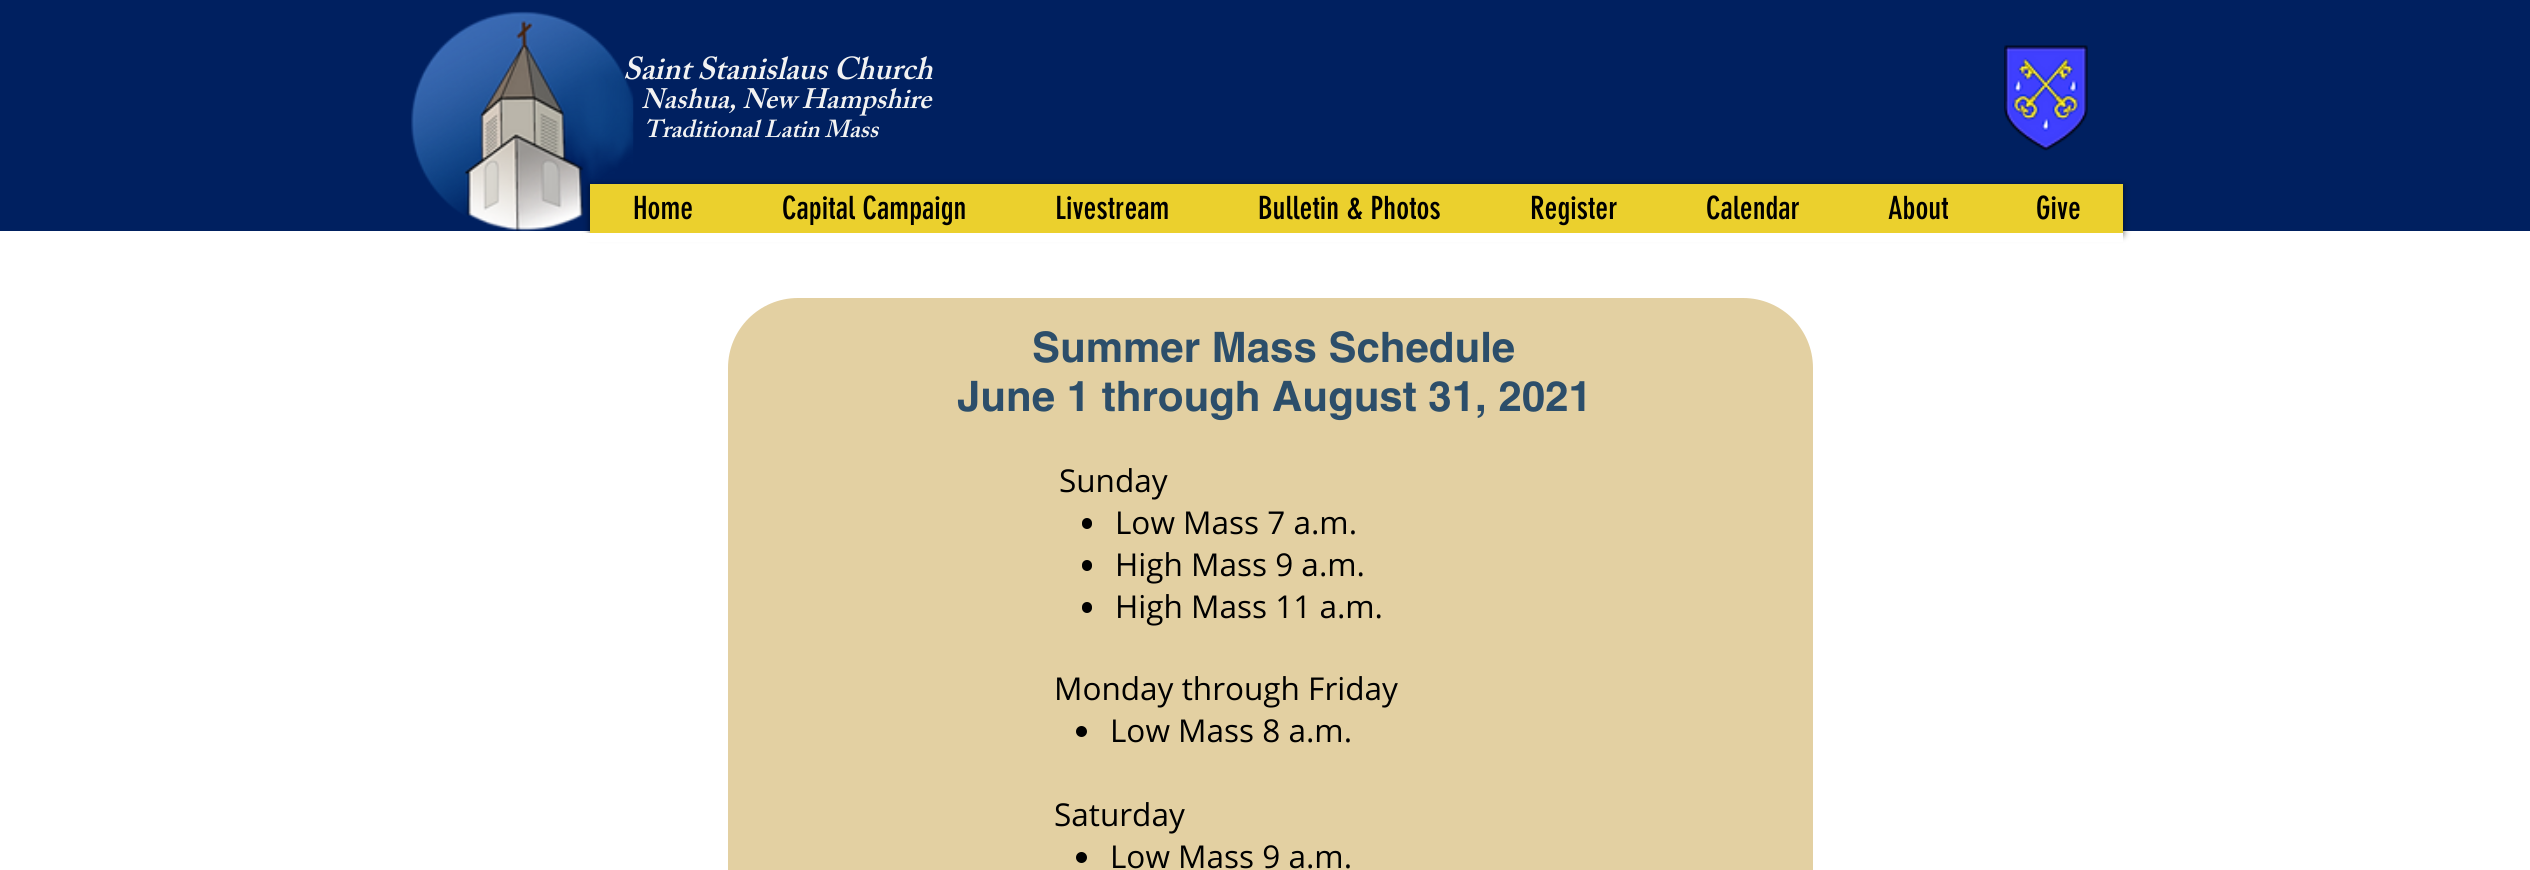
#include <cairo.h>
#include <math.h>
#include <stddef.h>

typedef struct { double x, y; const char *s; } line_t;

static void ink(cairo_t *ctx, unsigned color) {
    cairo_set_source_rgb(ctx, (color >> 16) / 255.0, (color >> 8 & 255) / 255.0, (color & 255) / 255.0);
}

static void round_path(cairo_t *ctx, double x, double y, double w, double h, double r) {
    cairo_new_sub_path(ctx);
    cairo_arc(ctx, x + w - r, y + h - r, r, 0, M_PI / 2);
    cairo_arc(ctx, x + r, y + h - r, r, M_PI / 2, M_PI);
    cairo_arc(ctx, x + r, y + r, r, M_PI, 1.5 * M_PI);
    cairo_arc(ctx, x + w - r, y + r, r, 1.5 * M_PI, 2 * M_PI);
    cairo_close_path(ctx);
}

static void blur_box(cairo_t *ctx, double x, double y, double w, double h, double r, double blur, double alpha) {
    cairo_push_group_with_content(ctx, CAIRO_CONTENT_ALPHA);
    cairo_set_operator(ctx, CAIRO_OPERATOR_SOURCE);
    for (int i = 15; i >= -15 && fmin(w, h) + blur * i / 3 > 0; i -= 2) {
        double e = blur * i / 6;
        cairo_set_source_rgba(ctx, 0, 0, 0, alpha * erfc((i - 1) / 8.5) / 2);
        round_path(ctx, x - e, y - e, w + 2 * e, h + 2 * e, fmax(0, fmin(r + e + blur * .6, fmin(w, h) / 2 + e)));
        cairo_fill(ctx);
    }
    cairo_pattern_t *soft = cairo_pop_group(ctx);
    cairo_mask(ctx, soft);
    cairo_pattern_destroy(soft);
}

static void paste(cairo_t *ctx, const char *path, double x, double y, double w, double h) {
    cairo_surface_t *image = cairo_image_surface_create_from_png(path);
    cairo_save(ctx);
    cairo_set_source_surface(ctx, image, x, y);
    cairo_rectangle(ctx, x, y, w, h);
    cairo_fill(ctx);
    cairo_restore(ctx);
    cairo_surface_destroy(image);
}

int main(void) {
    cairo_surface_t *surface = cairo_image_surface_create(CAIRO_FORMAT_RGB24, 2530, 870);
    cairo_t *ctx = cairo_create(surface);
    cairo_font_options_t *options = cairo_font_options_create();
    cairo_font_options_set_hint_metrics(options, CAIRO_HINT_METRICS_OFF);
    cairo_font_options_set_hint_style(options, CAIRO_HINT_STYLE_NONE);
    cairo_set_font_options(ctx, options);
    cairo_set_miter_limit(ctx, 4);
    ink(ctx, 0xFFFFFF);
    cairo_paint(ctx);
    ink(ctx, 0x002060);
    cairo_rectangle(ctx, 0, 0, 2530, 231);
    cairo_fill(ctx);
    paste(ctx, "media/1.png", 411, 11, 223, 220);
    cairo_select_font_face(ctx, "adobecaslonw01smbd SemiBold", CAIRO_FONT_SLANT_ITALIC, CAIRO_FONT_WEIGHT_NORMAL);
    cairo_set_font_size(ctx, 31.5);
    ink(ctx, 0xF2F2F2);
    cairo_move_to(ctx, 623, 79);
    cairo_show_text(ctx, "Saint Stanislaus Church");
    cairo_set_font_size(ctx, 28);
    cairo_move_to(ctx, 641, 108);
    cairo_show_text(ctx, "Nashua, New Hampshire");
    cairo_set_font_size(ctx, 24.5);
    cairo_move_to(ctx, 644, 137);
    cairo_show_text(ctx, "Traditional Latin Mass");
    paste(ctx, "media/2.png", 2004, 45, 84, 106);
    ink(ctx, 0x000000);
    blur_box(ctx, 590, 186, 1533, 49, 0, 3.5, 0.6);
    ink(ctx, 0xEBD02D);
    cairo_rectangle(ctx, 590, 184, 1533, 49);
    cairo_fill(ctx);
    cairo_select_font_face(ctx, "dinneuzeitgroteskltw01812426", CAIRO_FONT_SLANT_NORMAL, CAIRO_FONT_WEIGHT_NORMAL);
    cairo_set_font_size(ctx, 31.5);
    ink(ctx, 0x000000);
    {
        static const line_t items[] = {
            {633, 219, "Home"},
            {782, 219, "Capital Campaign"},
            {1055, 219, "Livestream"},
            {1258, 219, "Bulletin & Photos"},
            {1530, 219, "Register"},
            {1706, 219, "Calendar"},
            {1888, 219, "About"},
            {2036, 219, "Give"},
        };
        for (size_t i = 0; i < sizeof items / sizeof *items; i++) {
            cairo_move_to(ctx, items[i].x, items[i].y);
            cairo_show_text(ctx, items[i].s);
        }
    }
    ink(ctx, 0xFFFFFF);
    cairo_rectangle(ctx, 583, 233, 1540, 9);
    cairo_fill(ctx);
    ink(ctx, 0xE3D0A2);
    round_path(ctx, 728, 298, 1085, 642, 70);
    cairo_fill(ctx);
    cairo_select_font_face(ctx, "helvetica", CAIRO_FONT_SLANT_NORMAL, CAIRO_FONT_WEIGHT_BOLD);
    cairo_set_font_size(ctx, 42);
    ink(ctx, 0x2C4E6A);
    cairo_move_to(ctx, 1032, 362);
    cairo_show_text(ctx, "Summer Mass Schedule");
    cairo_move_to(ctx, 957, 411);
    cairo_show_text(ctx, "June 1 through August 31, 2021");
    cairo_select_font_face(ctx, "Open Sans", CAIRO_FONT_SLANT_NORMAL, CAIRO_FONT_WEIGHT_NORMAL);
    cairo_set_font_size(ctx, 31.5);
    ink(ctx, 0x000000);
    cairo_move_to(ctx, 1059, 492);
    cairo_show_text(ctx, "Sunday");
    round_path(ctx, 1082, 518, 10, 11, 5);
    cairo_fill(ctx);
    cairo_move_to(ctx, 1115, 534);
    cairo_show_text(ctx, "Low Mass 7 a.m.");
    round_path(ctx, 1082, 560, 10, 11, 5);
    cairo_fill(ctx);
    cairo_move_to(ctx, 1115, 576);
    cairo_show_text(ctx, "High Mass 9 a.m.");
    round_path(ctx, 1082, 602, 10, 11, 5);
    cairo_fill(ctx);
    cairo_move_to(ctx, 1115, 618);
    cairo_show_text(ctx, "High Mass 11 a.m.");
    cairo_move_to(ctx, 1054, 700);
    cairo_show_text(ctx, "Monday through Friday");
    cairo_new_path(ctx);
    cairo_arc(ctx, 1081.5, 731.5, 5.5, 0, 2 * M_PI);
    cairo_fill(ctx);
    cairo_move_to(ctx, 1110, 742);
    cairo_show_text(ctx, "Low Mass 8 a.m.");
    cairo_move_to(ctx, 1054, 826);
    cairo_show_text(ctx, "Saturday");
    cairo_new_path(ctx);
    cairo_arc(ctx, 1081.5, 857.5, 5.5, 0, 2 * M_PI);
    cairo_fill(ctx);
    cairo_move_to(ctx, 1110, 868);
    cairo_show_text(ctx, "Low Mass 9 a.m.");
    cairo_surface_write_to_png(surface, "image.png");
    cairo_font_options_destroy(options);
    cairo_destroy(ctx);
    cairo_surface_destroy(surface);
    return 0;
}
